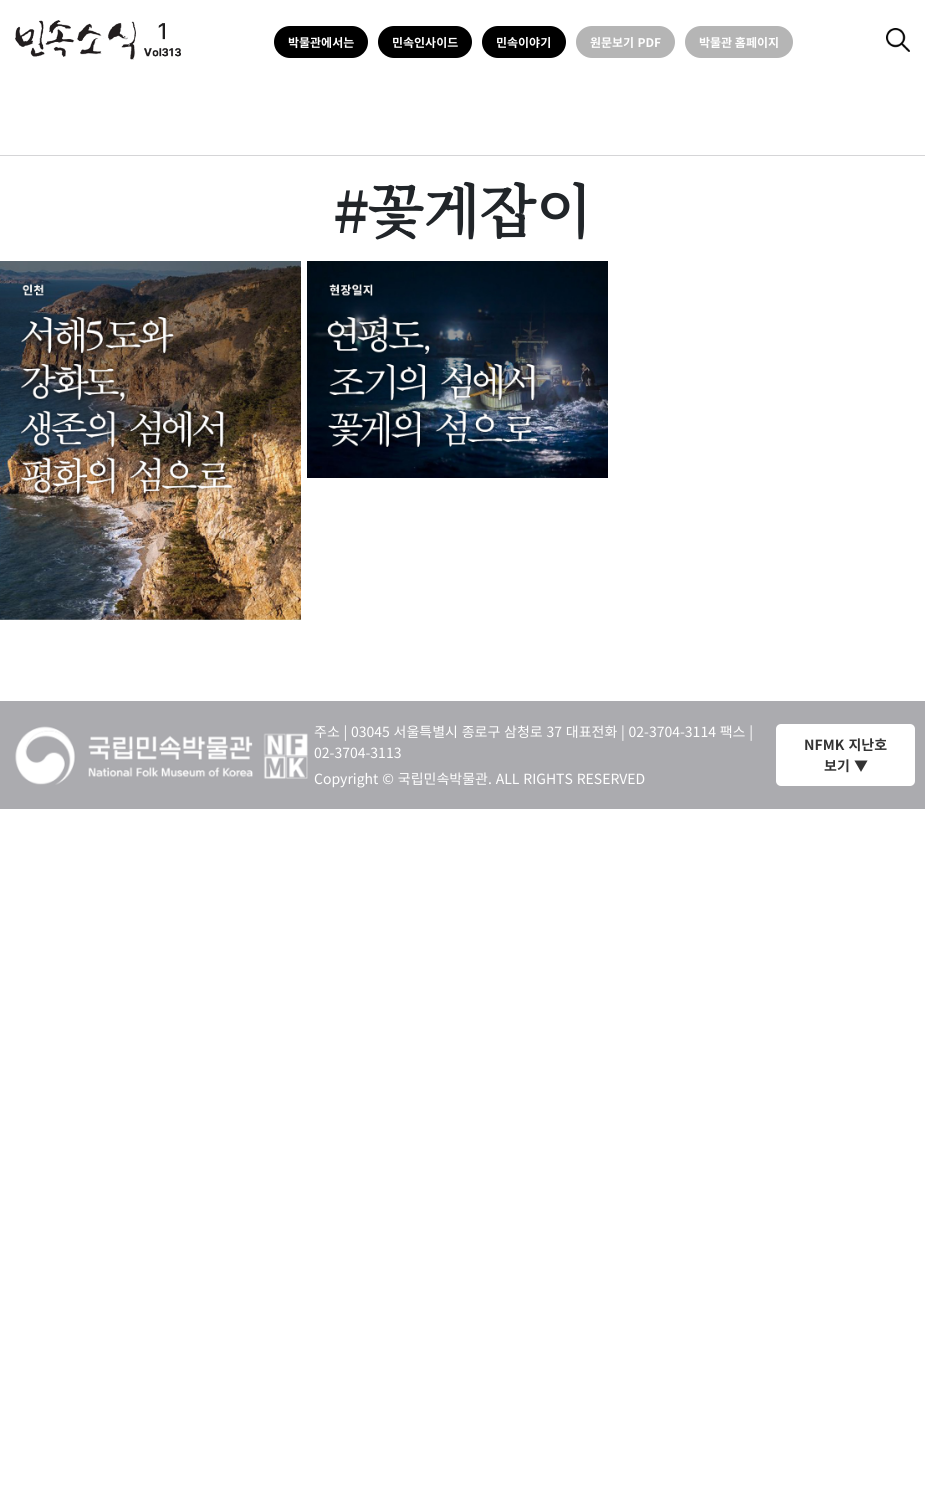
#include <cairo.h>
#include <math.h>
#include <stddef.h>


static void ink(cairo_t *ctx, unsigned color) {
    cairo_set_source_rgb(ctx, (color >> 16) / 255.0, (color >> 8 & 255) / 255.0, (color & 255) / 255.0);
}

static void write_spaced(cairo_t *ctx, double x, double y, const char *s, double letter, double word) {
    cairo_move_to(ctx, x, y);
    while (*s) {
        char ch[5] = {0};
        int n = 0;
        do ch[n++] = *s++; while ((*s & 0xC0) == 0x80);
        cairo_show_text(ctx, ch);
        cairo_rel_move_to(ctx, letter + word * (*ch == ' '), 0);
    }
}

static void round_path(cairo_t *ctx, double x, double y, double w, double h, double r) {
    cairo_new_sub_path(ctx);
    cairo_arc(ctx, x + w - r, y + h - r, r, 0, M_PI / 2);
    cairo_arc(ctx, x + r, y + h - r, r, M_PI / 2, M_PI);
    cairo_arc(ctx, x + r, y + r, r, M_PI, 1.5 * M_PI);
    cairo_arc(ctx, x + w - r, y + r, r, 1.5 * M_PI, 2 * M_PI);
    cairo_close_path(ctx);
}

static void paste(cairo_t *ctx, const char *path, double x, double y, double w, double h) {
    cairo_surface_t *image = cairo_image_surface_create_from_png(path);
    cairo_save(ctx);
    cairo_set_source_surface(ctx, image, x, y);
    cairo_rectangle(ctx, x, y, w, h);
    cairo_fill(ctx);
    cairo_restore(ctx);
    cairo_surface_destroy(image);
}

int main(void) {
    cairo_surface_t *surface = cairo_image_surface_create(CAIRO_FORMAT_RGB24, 925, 1491);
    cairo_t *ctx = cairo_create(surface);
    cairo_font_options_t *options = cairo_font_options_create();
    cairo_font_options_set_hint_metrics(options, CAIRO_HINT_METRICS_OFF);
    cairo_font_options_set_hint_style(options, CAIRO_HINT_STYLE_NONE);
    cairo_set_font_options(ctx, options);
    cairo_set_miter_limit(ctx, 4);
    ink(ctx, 0xFFFFFF);
    cairo_paint(ctx);
    paste(ctx, "media/1.png", 15, 20, 166, 40);
    ink(ctx, 0x000000);
    round_path(ctx, 274, 26, 94, 32, 16);
    cairo_fill(ctx);
    cairo_select_font_face(ctx, "Noto Sans KR", CAIRO_FONT_SLANT_NORMAL, CAIRO_FONT_WEIGHT_BOLD);
    cairo_set_font_size(ctx, 12);
    ink(ctx, 0xFFFFFF);
    cairo_move_to(ctx, 288, 47);
    cairo_show_text(ctx, "박물관에서는");
    ink(ctx, 0x000000);
    round_path(ctx, 378, 26, 94, 32, 16);
    cairo_fill(ctx);
    ink(ctx, 0xFFFFFF);
    cairo_move_to(ctx, 392, 47);
    cairo_show_text(ctx, "민속인사이드");
    ink(ctx, 0x000000);
    round_path(ctx, 482, 26, 84, 32, 16);
    cairo_fill(ctx);
    ink(ctx, 0xFFFFFF);
    cairo_move_to(ctx, 496, 47);
    cairo_show_text(ctx, "민속이야기");
    ink(ctx, 0xB5B5B5);
    round_path(ctx, 576, 26, 99, 32, 16);
    cairo_fill(ctx);
    ink(ctx, 0xFFFFFF);
    write_spaced(ctx, 590, 47, "원문보기 PDF", 0, 0.6);
    ink(ctx, 0xB5B5B5);
    round_path(ctx, 685, 26, 108, 32, 16);
    cairo_fill(ctx);
    ink(ctx, 0xFFFFFF);
    cairo_move_to(ctx, 699, 47);
    cairo_show_text(ctx, "박물관 홈페이지");
    paste(ctx, "media/2.png", 886, 28, 24, 24);
    ink(ctx, 0xD5D5D7);
    cairo_rectangle(ctx, 0, 155, 925, 1);
    cairo_fill(ctx);
    cairo_select_font_face(ctx, "Noto Serif KR", CAIRO_FONT_SLANT_NORMAL, CAIRO_FONT_WEIGHT_BOLD);
    cairo_set_font_size(ctx, 58);
    ink(ctx, 0x212529);
    cairo_move_to(ctx, 334, 233);
    cairo_show_text(ctx, "#꽃게잡이");
    paste(ctx, "media/3.png", 0, 261, 301, 359);
    paste(ctx, "media/4.png", 307, 261, 301, 217);
    ink(ctx, 0xABABAF);
    cairo_rectangle(ctx, 0, 701, 925, 108);
    cairo_fill(ctx);
    paste(ctx, "media/5.png", 15, 726, 293, 59);
    cairo_select_font_face(ctx, "Noto Sans KR", CAIRO_FONT_SLANT_NORMAL, CAIRO_FONT_WEIGHT_NORMAL);
    cairo_set_font_size(ctx, 14);
    ink(ctx, 0xFFFFFF);
    write_spaced(ctx, 314, 737, "주소 | 03045 서울특별시 종로구 삼청로 37 대표전화 | 02-3704-3114 팩스 |", 0, 0.6);
    cairo_move_to(ctx, 314, 758);
    cairo_show_text(ctx, "02-3704-3113");
    write_spaced(ctx, 314, 784, "Copyright © 국립민속박물관. ALL RIGHTS RESERVED", 0, 0.75);
    round_path(ctx, 776, 724, 139, 62, 5);
    cairo_fill(ctx);
    cairo_select_font_face(ctx, "Noto Sans KR", CAIRO_FONT_SLANT_NORMAL, CAIRO_FONT_WEIGHT_BOLD);
    ink(ctx, 0x333333);
    write_spaced(ctx, 804, 750, "NFMK 지난호", 0, 1);
    write_spaced(ctx, 824, 771, "보기 ▼", 0, 1);
    cairo_surface_write_to_png(surface, "image.png");
    cairo_font_options_destroy(options);
    cairo_destroy(ctx);
    cairo_surface_destroy(surface);
    return 0;
}
